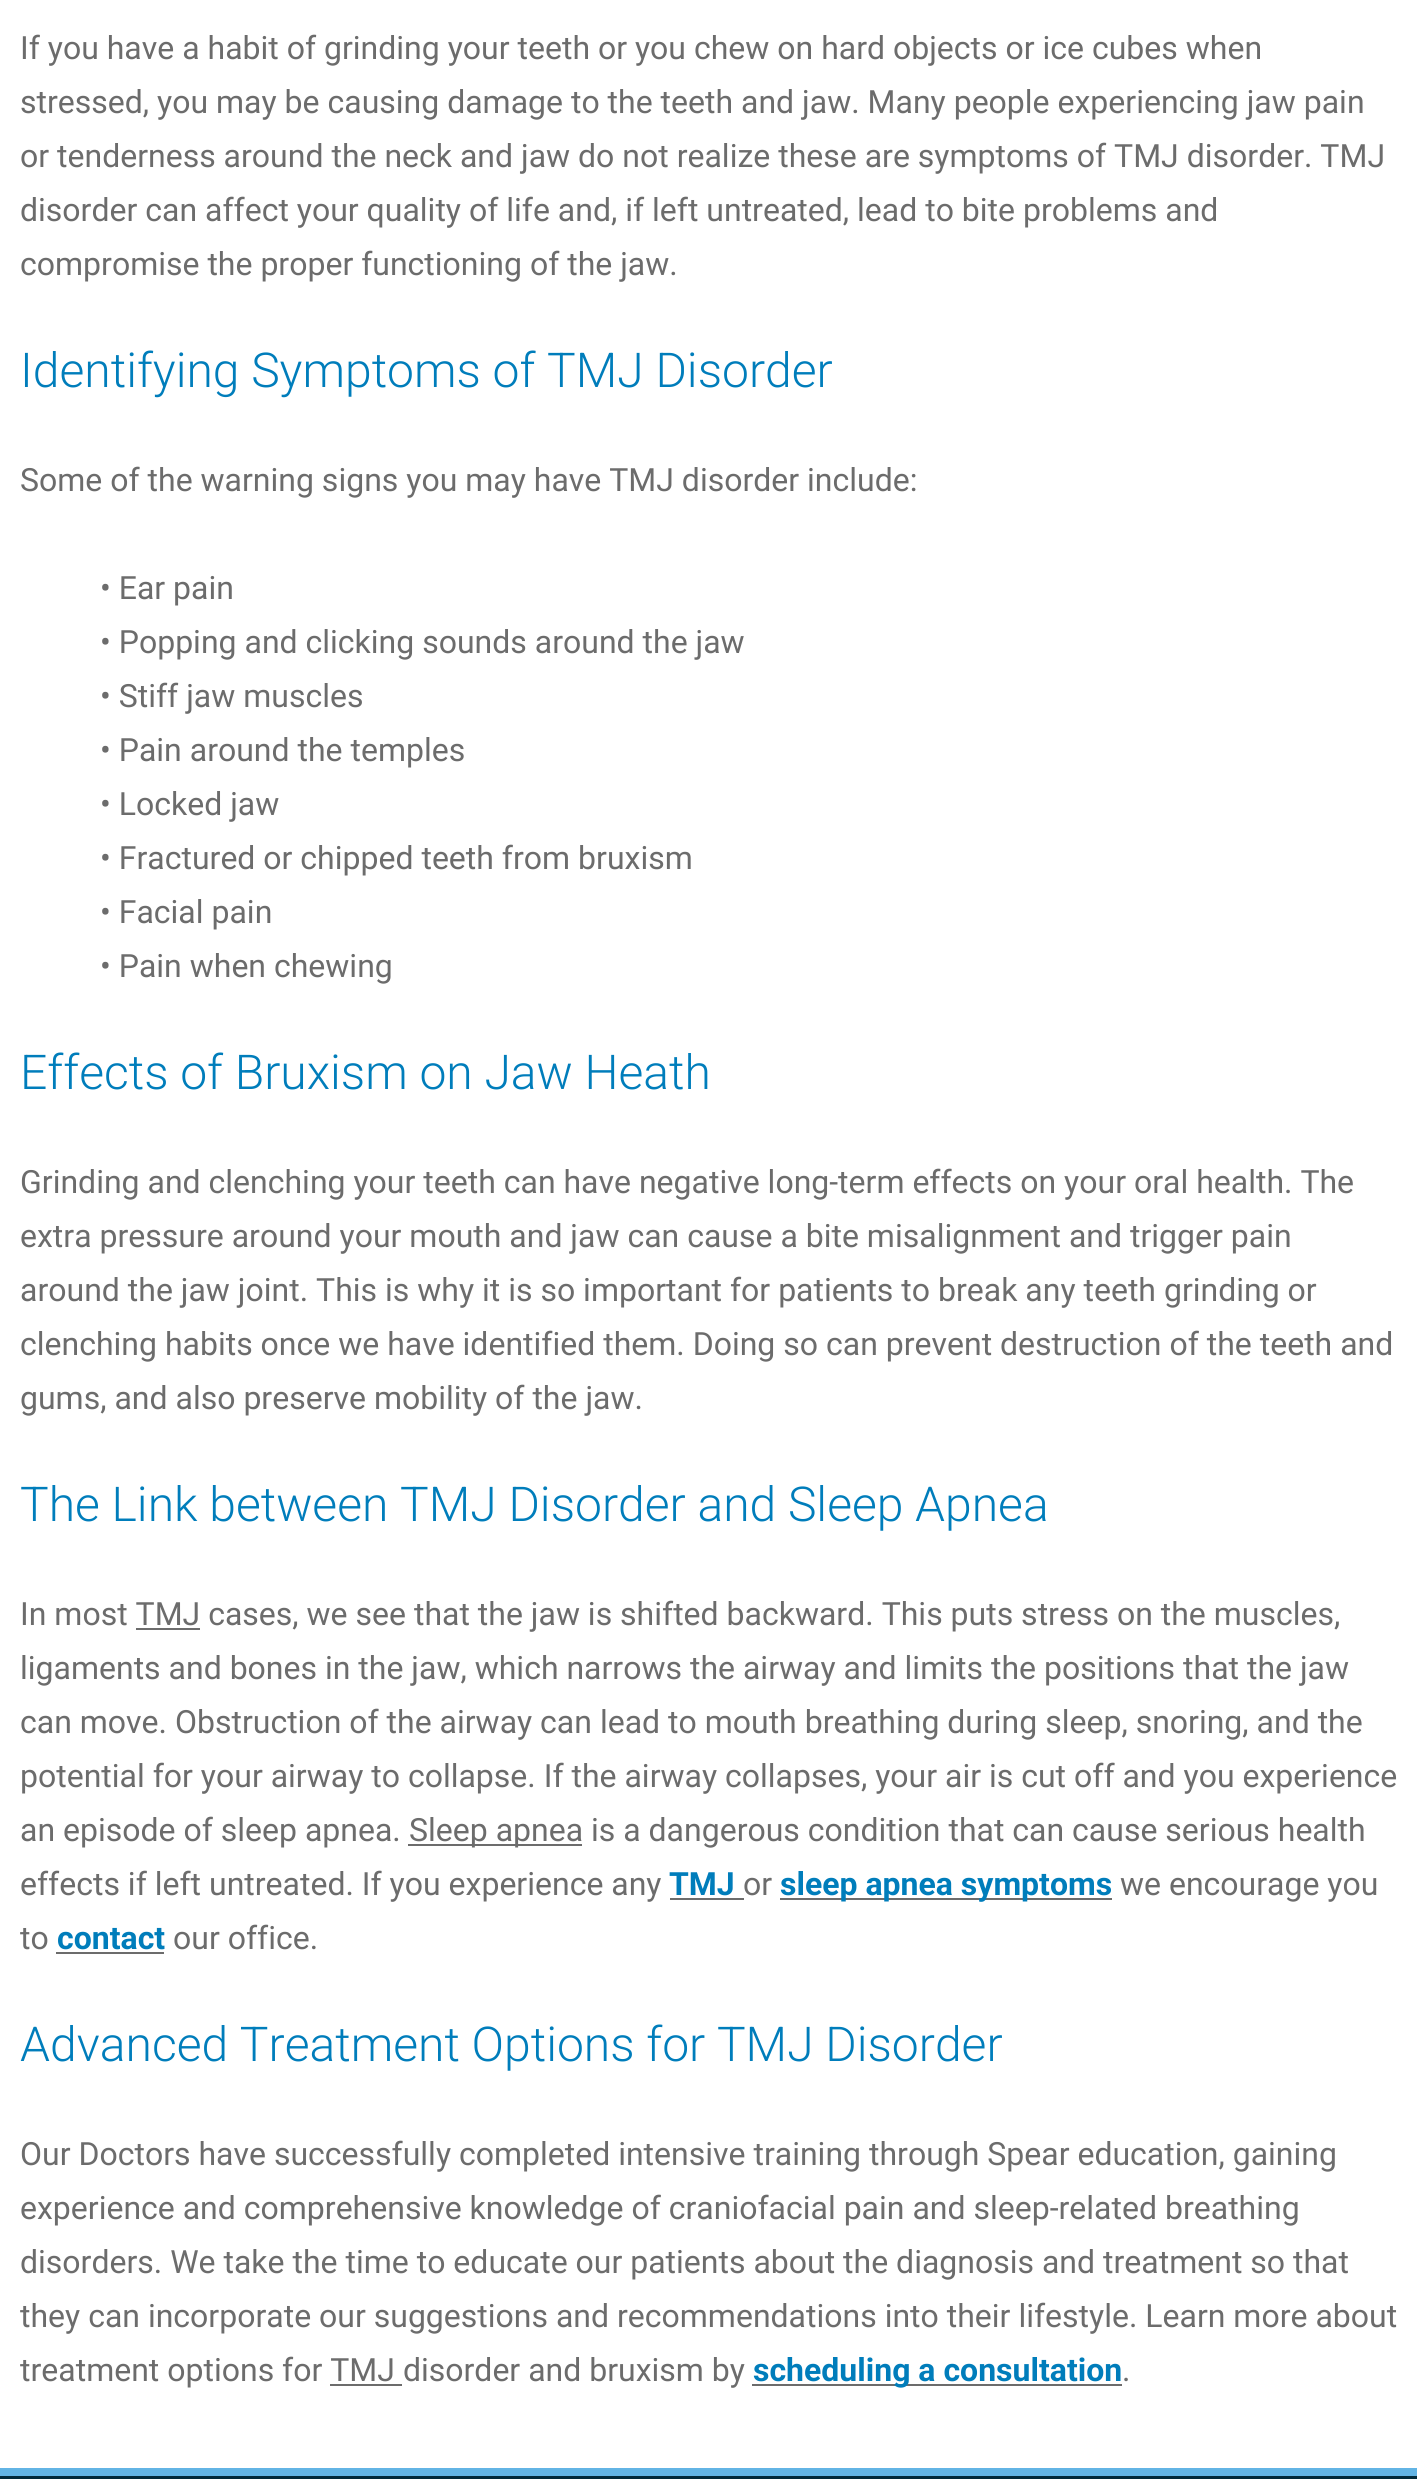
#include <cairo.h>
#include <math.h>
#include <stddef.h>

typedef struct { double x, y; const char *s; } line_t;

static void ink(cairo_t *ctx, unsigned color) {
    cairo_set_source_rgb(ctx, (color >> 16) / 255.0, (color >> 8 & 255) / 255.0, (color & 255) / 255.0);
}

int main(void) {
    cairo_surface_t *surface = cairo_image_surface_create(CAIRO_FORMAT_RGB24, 1417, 2479);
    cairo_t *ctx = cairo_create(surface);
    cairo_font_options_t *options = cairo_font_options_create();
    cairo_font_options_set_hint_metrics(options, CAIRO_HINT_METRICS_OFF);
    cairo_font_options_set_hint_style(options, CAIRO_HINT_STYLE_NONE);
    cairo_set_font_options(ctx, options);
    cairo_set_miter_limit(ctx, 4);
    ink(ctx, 0xFFFFFF);
    cairo_paint(ctx);
    cairo_select_font_face(ctx, "Roboto", CAIRO_FONT_SLANT_NORMAL, CAIRO_FONT_WEIGHT_NORMAL);
    cairo_set_font_size(ctx, 32);
    ink(ctx, 0x6C6C6C);
    {
        static const line_t items[] = {
            {20, 59, "If you have a habit of grinding your teeth or you chew on hard objects or ice cubes when"},
            {20, 113, "stressed, you may be causing damage to the teeth and jaw. Many people experiencing jaw pain"},
            {20, 167, "or tenderness around the neck and jaw do not realize these are symptoms of TMJ disorder. TMJ"},
            {20, 221, "disorder can affect your quality of life and, if left untreated, lead to bite problems and"},
            {20, 275, "compromise the proper functioning of the jaw."},
        };
        for (size_t i = 0; i < sizeof items / sizeof *items; i++) {
            cairo_move_to(ctx, items[i].x, items[i].y);
            cairo_show_text(ctx, items[i].s);
        }
    }
    cairo_select_font_face(ctx, "Roboto Light", CAIRO_FONT_SLANT_NORMAL, CAIRO_FONT_WEIGHT_NORMAL);
    cairo_set_font_size(ctx, 48);
    ink(ctx, 0x007DBB);
    cairo_move_to(ctx, 20, 387);
    cairo_show_text(ctx, "Identifying Symptoms of TMJ Disorder");
    cairo_select_font_face(ctx, "Roboto", CAIRO_FONT_SLANT_NORMAL, CAIRO_FONT_WEIGHT_NORMAL);
    cairo_set_font_size(ctx, 32);
    ink(ctx, 0x6C6C6C);
    {
        static const line_t items[] = {
            {20, 491, "Some of the warning signs you may have TMJ disorder include:"},
            {100, 599, "• Ear pain"},
            {100, 653, "• Popping and clicking sounds around the jaw"},
            {100, 707, "• Stiff jaw muscles"},
            {100, 761, "• Pain around the temples"},
            {100, 815, "• Locked jaw"},
            {100, 869, "• Fractured or chipped teeth from bruxism"},
            {100, 923, "• Facial pain"},
            {100, 977, "• Pain when chewing"},
        };
        for (size_t i = 0; i < sizeof items / sizeof *items; i++) {
            cairo_move_to(ctx, items[i].x, items[i].y);
            cairo_show_text(ctx, items[i].s);
        }
    }
    cairo_select_font_face(ctx, "Roboto Light", CAIRO_FONT_SLANT_NORMAL, CAIRO_FONT_WEIGHT_NORMAL);
    cairo_set_font_size(ctx, 48);
    ink(ctx, 0x007DBB);
    cairo_move_to(ctx, 20, 1089);
    cairo_show_text(ctx, "Effects of Bruxism on Jaw Heath");
    cairo_select_font_face(ctx, "Roboto", CAIRO_FONT_SLANT_NORMAL, CAIRO_FONT_WEIGHT_NORMAL);
    cairo_set_font_size(ctx, 32);
    ink(ctx, 0x6C6C6C);
    {
        static const line_t items[] = {
            {20, 1193, "Grinding and clenching your teeth can have negative long-term effects on your oral health. The"},
            {20, 1247, "extra pressure around your mouth and jaw can cause a bite misalignment and trigger pain"},
            {20, 1301, "around the jaw joint. This is why it is so important for patients to break any teeth grinding or"},
            {20, 1355, "clenching habits once we have identified them. Doing so can prevent destruction of the teeth and"},
            {20, 1409, "gums, and also preserve mobility of the jaw."},
        };
        for (size_t i = 0; i < sizeof items / sizeof *items; i++) {
            cairo_move_to(ctx, items[i].x, items[i].y);
            cairo_show_text(ctx, items[i].s);
        }
    }
    cairo_select_font_face(ctx, "Roboto Light", CAIRO_FONT_SLANT_NORMAL, CAIRO_FONT_WEIGHT_NORMAL);
    cairo_set_font_size(ctx, 48);
    ink(ctx, 0x007DBB);
    cairo_move_to(ctx, 20, 1521);
    cairo_show_text(ctx, "The Link between TMJ Disorder and Sleep Apnea");
    cairo_select_font_face(ctx, "Roboto", CAIRO_FONT_SLANT_NORMAL, CAIRO_FONT_WEIGHT_NORMAL);
    cairo_set_font_size(ctx, 32);
    ink(ctx, 0x6C6C6C);
    cairo_move_to(ctx, 20, 1625);
    cairo_show_text(ctx, "In most TMJ cases, we see that the jaw is shifted backward. This puts stress on the muscles,");
    cairo_rectangle(ctx, 136, 1628, 64, 2);
    cairo_fill(ctx);
    {
        static const line_t items[] = {
            {20, 1679, "ligaments and bones in the jaw, which narrows the airway and limits the positions that the jaw"},
            {20, 1733, "can move. Obstruction of the airway can lead to mouth breathing during sleep, snoring, and the"},
            {20, 1787, "potential for your airway to collapse. If the airway collapses, your air is cut off and you experience"},
            {20, 1841, "an episode of sleep apnea."},
        };
        for (size_t i = 0; i < sizeof items / sizeof *items; i++) {
            cairo_move_to(ctx, items[i].x, items[i].y);
            cairo_show_text(ctx, items[i].s);
        }
    }
    cairo_rectangle(ctx, 408, 1844, 174, 2);
    cairo_fill(ctx);
    cairo_move_to(ctx, 409, 1841);
    cairo_show_text(ctx, "Sleep apnea is a dangerous condition that can cause serious health");
    cairo_move_to(ctx, 20, 1895);
    cairo_show_text(ctx, "effects if left untreated. If you experience any");
    cairo_select_font_face(ctx, "Roboto", CAIRO_FONT_SLANT_NORMAL, CAIRO_FONT_WEIGHT_BOLD);
    ink(ctx, 0x007DBB);
    cairo_move_to(ctx, 669, 1895);
    cairo_show_text(ctx, "TMJ");
    cairo_select_font_face(ctx, "Roboto", CAIRO_FONT_SLANT_NORMAL, CAIRO_FONT_WEIGHT_NORMAL);
    ink(ctx, 0x6C6C6C);
    cairo_move_to(ctx, 743, 1895);
    cairo_show_text(ctx, "or");
    cairo_rectangle(ctx, 670, 1898, 74, 2);
    cairo_fill(ctx);
    cairo_rectangle(ctx, 780, 1898, 332, 2);
    cairo_fill(ctx);
    cairo_select_font_face(ctx, "Roboto", CAIRO_FONT_SLANT_NORMAL, CAIRO_FONT_WEIGHT_BOLD);
    ink(ctx, 0x007DBB);
    cairo_move_to(ctx, 780, 1895);
    cairo_show_text(ctx, "sleep apnea symptoms");
    cairo_select_font_face(ctx, "Roboto", CAIRO_FONT_SLANT_NORMAL, CAIRO_FONT_WEIGHT_NORMAL);
    ink(ctx, 0x6C6C6C);
    cairo_move_to(ctx, 1120, 1895);
    cairo_show_text(ctx, "we encourage you");
    cairo_move_to(ctx, 20, 1949);
    cairo_show_text(ctx, "to");
    cairo_select_font_face(ctx, "Roboto", CAIRO_FONT_SLANT_NORMAL, CAIRO_FONT_WEIGHT_BOLD);
    ink(ctx, 0x007DBB);
    cairo_move_to(ctx, 57, 1949);
    cairo_show_text(ctx, "contact");
    ink(ctx, 0x6C6C6C);
    cairo_rectangle(ctx, 56, 1952, 108, 2);
    cairo_fill(ctx);
    cairo_select_font_face(ctx, "Roboto", CAIRO_FONT_SLANT_NORMAL, CAIRO_FONT_WEIGHT_NORMAL);
    cairo_move_to(ctx, 173, 1949);
    cairo_show_text(ctx, "our office.");
    cairo_select_font_face(ctx, "Roboto Light", CAIRO_FONT_SLANT_NORMAL, CAIRO_FONT_WEIGHT_NORMAL);
    cairo_set_font_size(ctx, 48);
    ink(ctx, 0x007DBB);
    cairo_move_to(ctx, 20, 2061);
    cairo_show_text(ctx, "Advanced Treatment Options for TMJ Disorder");
    cairo_select_font_face(ctx, "Roboto", CAIRO_FONT_SLANT_NORMAL, CAIRO_FONT_WEIGHT_NORMAL);
    cairo_set_font_size(ctx, 32);
    ink(ctx, 0x6C6C6C);
    {
        static const line_t items[] = {
            {20, 2165, "Our Doctors have successfully completed intensive training through Spear education, gaining"},
            {20, 2219, "experience and comprehensive knowledge of craniofacial pain and sleep-related breathing"},
            {20, 2273, "disorders. We take the time to educate our patients about the diagnosis and treatment so that"},
            {20, 2327, "they can incorporate our suggestions and recommendations into their lifestyle. Learn more about"},
            {20, 2381, "treatment options for TMJ disorder and bruxism by"},
        };
        for (size_t i = 0; i < sizeof items / sizeof *items; i++) {
            cairo_move_to(ctx, items[i].x, items[i].y);
            cairo_show_text(ctx, items[i].s);
        }
    }
    cairo_rectangle(ctx, 330, 2384, 72, 2);
    cairo_fill(ctx);
    cairo_rectangle(ctx, 752, 2384, 370, 2);
    cairo_fill(ctx);
    cairo_select_font_face(ctx, "Roboto", CAIRO_FONT_SLANT_NORMAL, CAIRO_FONT_WEIGHT_BOLD);
    ink(ctx, 0x007DBB);
    cairo_move_to(ctx, 753, 2381);
    cairo_show_text(ctx, "scheduling a consultation");
    cairo_select_font_face(ctx, "Roboto", CAIRO_FONT_SLANT_NORMAL, CAIRO_FONT_WEIGHT_NORMAL);
    ink(ctx, 0x6C6C6C);
    cairo_move_to(ctx, 1122, 2381);
    cairo_show_text(ctx, ".");
    ink(ctx, 0x002939);
    cairo_rectangle(ctx, 0, 2476, 1417, 3);
    cairo_fill(ctx);
    ink(ctx, 0x62B4E4);
    cairo_rectangle(ctx, 0, 2468, 1417, 8);
    cairo_fill(ctx);
    cairo_surface_write_to_png(surface, "image.png");
    cairo_font_options_destroy(options);
    cairo_destroy(ctx);
    cairo_surface_destroy(surface);
    return 0;
}
